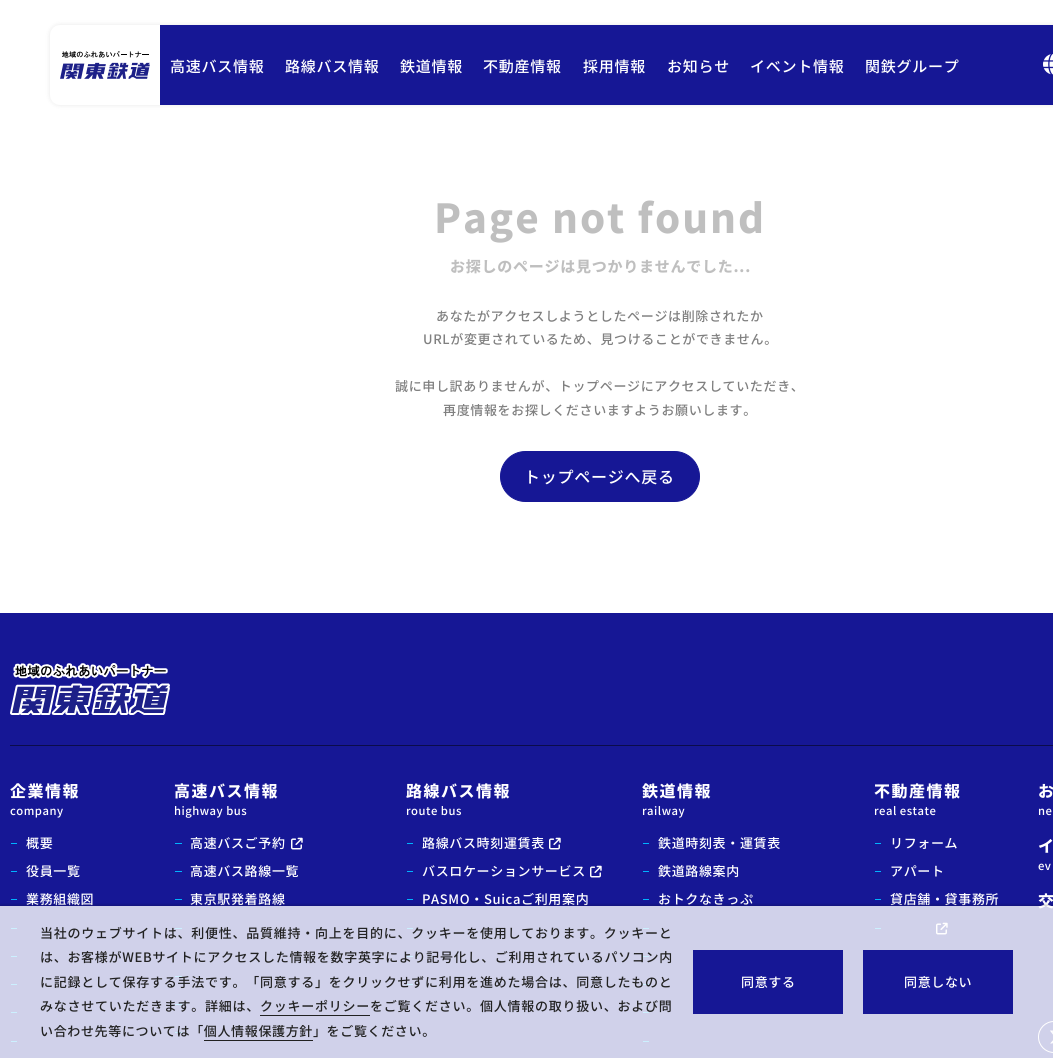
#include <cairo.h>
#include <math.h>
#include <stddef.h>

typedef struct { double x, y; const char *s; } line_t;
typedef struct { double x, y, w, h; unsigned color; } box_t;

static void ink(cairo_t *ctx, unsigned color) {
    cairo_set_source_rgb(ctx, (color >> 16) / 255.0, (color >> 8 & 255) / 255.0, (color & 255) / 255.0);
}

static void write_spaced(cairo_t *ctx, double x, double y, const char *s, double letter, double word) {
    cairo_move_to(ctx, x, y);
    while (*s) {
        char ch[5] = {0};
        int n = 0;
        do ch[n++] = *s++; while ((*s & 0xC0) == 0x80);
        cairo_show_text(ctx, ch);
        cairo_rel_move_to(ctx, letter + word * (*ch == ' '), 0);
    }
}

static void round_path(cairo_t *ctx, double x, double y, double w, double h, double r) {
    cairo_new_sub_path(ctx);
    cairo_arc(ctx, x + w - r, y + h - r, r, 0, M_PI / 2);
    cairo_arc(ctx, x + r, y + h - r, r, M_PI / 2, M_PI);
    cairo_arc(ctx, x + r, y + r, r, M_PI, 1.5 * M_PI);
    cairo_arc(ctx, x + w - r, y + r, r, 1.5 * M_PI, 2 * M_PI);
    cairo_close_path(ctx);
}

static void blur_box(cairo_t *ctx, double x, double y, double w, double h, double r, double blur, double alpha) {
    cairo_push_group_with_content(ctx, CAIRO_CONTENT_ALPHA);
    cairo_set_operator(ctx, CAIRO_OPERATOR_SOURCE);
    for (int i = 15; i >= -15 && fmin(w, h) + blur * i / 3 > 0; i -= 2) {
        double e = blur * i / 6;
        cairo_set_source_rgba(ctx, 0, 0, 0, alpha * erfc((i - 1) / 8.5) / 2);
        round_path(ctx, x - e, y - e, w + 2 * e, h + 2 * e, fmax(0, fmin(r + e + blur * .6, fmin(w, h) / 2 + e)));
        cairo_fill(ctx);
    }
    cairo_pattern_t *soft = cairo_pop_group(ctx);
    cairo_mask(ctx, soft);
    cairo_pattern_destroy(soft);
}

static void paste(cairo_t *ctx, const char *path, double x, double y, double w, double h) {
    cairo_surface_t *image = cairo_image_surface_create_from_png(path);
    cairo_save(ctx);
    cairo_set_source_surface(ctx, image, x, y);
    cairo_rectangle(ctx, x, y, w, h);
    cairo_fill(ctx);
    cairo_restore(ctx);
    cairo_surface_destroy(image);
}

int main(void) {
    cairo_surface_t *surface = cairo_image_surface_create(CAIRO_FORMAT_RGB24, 1053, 1058);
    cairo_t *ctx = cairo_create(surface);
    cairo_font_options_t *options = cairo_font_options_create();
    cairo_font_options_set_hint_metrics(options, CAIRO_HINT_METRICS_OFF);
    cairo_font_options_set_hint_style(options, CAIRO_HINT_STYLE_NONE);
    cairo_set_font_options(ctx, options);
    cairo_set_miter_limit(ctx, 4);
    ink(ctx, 0xFFFFFF);
    cairo_paint(ctx);
    ink(ctx, 0x000000);
    blur_box(ctx, 50, 25, 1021, 80, 10, 2.5, 0.1);
    ink(ctx, 0xFFFFFF);
    round_path(ctx, 50, 25, 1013, 80, 10);
    cairo_fill(ctx);
    paste(ctx, "media/1.png", 60, 51, 90, 28);
    ink(ctx, 0x161795);
    cairo_rectangle(ctx, 160, 25, 893, 80);
    cairo_fill(ctx);
    cairo_select_font_face(ctx, "Noto Sans JP Medium", CAIRO_FONT_SLANT_NORMAL, CAIRO_FONT_WEIGHT_NORMAL);
    cairo_set_font_size(ctx, 15);
    ink(ctx, 0xFFFFFF);
    {
        static const line_t items[] = {
            {170, 72, "高速バス情報"},
            {285, 72, "路線バス情報"},
            {400, 72, "鉄道情報"},
            {483, 72, "不動産情報"},
            {583, 72, "採用情報"},
            {667, 72, "お知らせ"},
            {750, 72, "イベント情報"},
            {865, 72, "関鉄グループ"},
        };
        for (size_t i = 0; i < sizeof items / sizeof *items; i++) {
            write_spaced(ctx, items[i].x, items[i].y, items[i].s, 0.75, 0);
        }
    }
    paste(ctx, "media/2.png", 1043, 54, 10, 21);
    cairo_select_font_face(ctx, "Noto Sans JP ExtraBold", CAIRO_FONT_SLANT_NORMAL, CAIRO_FONT_WEIGHT_NORMAL);
    cairo_set_font_size(ctx, 40);
    ink(ctx, 0xBFBFBF);
    write_spaced(ctx, 434, 233, "Page not found", 2, 0);
    cairo_set_font_size(ctx, 15);
    write_spaced(ctx, 450, 272, "お探しのページは見つかりませんでした...", 0.75, 0);
    cairo_select_font_face(ctx, "Noto Sans JP Medium", CAIRO_FONT_SLANT_NORMAL, CAIRO_FONT_WEIGHT_NORMAL);
    cairo_set_font_size(ctx, 13);
    ink(ctx, 0x808080);
    {
        static const line_t items[] = {
            {436, 321, "あなたがアクセスしようとしたページは削除されたか"},
            {423, 344, "URLが変更されているため、見つけることができません。"},
            {395, 391, "誠に申し訳ありませんが、トップページにアクセスしていただき、"},
            {443, 415, "再度情報をお探しくださいますようお願いします。"},
        };
        for (size_t i = 0; i < sizeof items / sizeof *items; i++) {
            write_spaced(ctx, items[i].x, items[i].y, items[i].s, 0.65, 0);
        }
    }
    ink(ctx, 0x161795);
    round_path(ctx, 500.5, 451.5, 199, 50, 25);
    cairo_fill_preserve(ctx);
    cairo_set_line_width(ctx, 1);
    cairo_stroke(ctx);
    cairo_set_font_size(ctx, 16);
    ink(ctx, 0xFFFFFF);
    write_spaced(ctx, 524, 483, "トップページへ戻る", 0.75, 0);
    ink(ctx, 0x161795);
    cairo_rectangle(ctx, 0, 613, 1053, 445);
    cairo_fill(ctx);
    ink(ctx, 0x0B0C4B);
    cairo_rectangle(ctx, 10, 745, 1043, 1);
    cairo_fill(ctx);
    paste(ctx, "media/3.png", 10, 663, 160, 52);
    cairo_select_font_face(ctx, "Noto Sans JP ExtraBold", CAIRO_FONT_SLANT_NORMAL, CAIRO_FONT_WEIGHT_NORMAL);
    ink(ctx, 0xFFFFFF);
    write_spaced(ctx, 10, 797, "企業情報", 1.5, 0);
    cairo_select_font_face(ctx, "Noto Sans JP Medium", CAIRO_FONT_SLANT_NORMAL, CAIRO_FONT_WEIGHT_NORMAL);
    cairo_set_font_size(ctx, 11.25);
    write_spaced(ctx, 10, 815, "company", 0.5, 0);
    ink(ctx, 0x00B3FF);
    cairo_rectangle(ctx, 11, 843, 6, 1);
    cairo_fill(ctx);
    cairo_set_font_size(ctx, 13);
    ink(ctx, 0xFFFFFF);
    write_spaced(ctx, 26, 848, "概要", 0.65, 0);
    ink(ctx, 0x00B3FF);
    cairo_rectangle(ctx, 11, 871, 6, 1);
    cairo_fill(ctx);
    ink(ctx, 0xFFFFFF);
    write_spaced(ctx, 26, 876, "役員一覧", 0.65, 0);
    ink(ctx, 0x00B3FF);
    cairo_rectangle(ctx, 11, 899, 6, 1);
    cairo_fill(ctx);
    ink(ctx, 0xFFFFFF);
    write_spaced(ctx, 26, 904, "業務組織図", 0.65, 0);
    {
        static const box_t items[] = {
            {11, 928, 6, 1, 0x00B3FF},
            {11, 956, 6, 1, 0x00B3FF},
            {11, 984, 6, 1, 0x00B3FF},
            {11, 1012, 6, 1, 0x00B3FF},
            {11, 1041, 6, 1, 0x00B3FF},
        };
        for (size_t i = 0; i < sizeof items / sizeof *items; i++) {
            ink(ctx, items[i].color);
            cairo_rectangle(ctx, items[i].x, items[i].y, items[i].w, items[i].h);
            cairo_fill(ctx);
        }
    }
    cairo_select_font_face(ctx, "Noto Sans JP ExtraBold", CAIRO_FONT_SLANT_NORMAL, CAIRO_FONT_WEIGHT_NORMAL);
    cairo_set_font_size(ctx, 16);
    ink(ctx, 0xFFFFFF);
    write_spaced(ctx, 174, 797, "高速バス情報", 1.5, 0);
    cairo_select_font_face(ctx, "Noto Sans JP Medium", CAIRO_FONT_SLANT_NORMAL, CAIRO_FONT_WEIGHT_NORMAL);
    cairo_set_font_size(ctx, 11.25);
    write_spaced(ctx, 174, 815, "highway bus", 0.5, 0);
    ink(ctx, 0x00B3FF);
    cairo_rectangle(ctx, 175, 843, 7, 1);
    cairo_fill(ctx);
    cairo_set_font_size(ctx, 13);
    ink(ctx, 0xFFFFFF);
    write_spaced(ctx, 190, 848, "高速バスご予約", 0.65, 0);
    paste(ctx, "media/4.png", 291, 837, 12, 13);
    ink(ctx, 0x00B3FF);
    cairo_rectangle(ctx, 175, 871, 7, 1);
    cairo_fill(ctx);
    ink(ctx, 0xFFFFFF);
    write_spaced(ctx, 190, 876, "高速バス路線一覧", 0.65, 0);
    ink(ctx, 0x00B3FF);
    cairo_rectangle(ctx, 175, 899, 7, 1);
    cairo_fill(ctx);
    ink(ctx, 0xFFFFFF);
    write_spaced(ctx, 190, 904, "東京駅発着路線", 0.65, 0);
    {
        static const box_t items[] = {
            {175, 928, 7, 1, 0x00B3FF},
            {175, 976, 7, 1, 0x00B3FF},
            {175, 1004, 7, 1, 0x00B3FF},
            {175, 1032, 7, 1, 0x00B3FF},
        };
        for (size_t i = 0; i < sizeof items / sizeof *items; i++) {
            ink(ctx, items[i].color);
            cairo_rectangle(ctx, items[i].x, items[i].y, items[i].w, items[i].h);
            cairo_fill(ctx);
        }
    }
    cairo_select_font_face(ctx, "Noto Sans JP ExtraBold", CAIRO_FONT_SLANT_NORMAL, CAIRO_FONT_WEIGHT_NORMAL);
    cairo_set_font_size(ctx, 16);
    ink(ctx, 0xFFFFFF);
    write_spaced(ctx, 406, 797, "路線バス情報", 1.5, 0);
    cairo_select_font_face(ctx, "Noto Sans JP Medium", CAIRO_FONT_SLANT_NORMAL, CAIRO_FONT_WEIGHT_NORMAL);
    cairo_set_font_size(ctx, 11.25);
    write_spaced(ctx, 406, 815, "route bus", 0.5, 0);
    ink(ctx, 0x00B3FF);
    cairo_rectangle(ctx, 407, 843, 6, 1);
    cairo_fill(ctx);
    cairo_set_font_size(ctx, 13);
    ink(ctx, 0xFFFFFF);
    write_spaced(ctx, 422, 848, "路線バス時刻運賃表", 0.65, 0);
    paste(ctx, "media/4.png", 549, 837, 12, 13);
    ink(ctx, 0x00B3FF);
    cairo_rectangle(ctx, 407, 871, 6, 1);
    cairo_fill(ctx);
    ink(ctx, 0xFFFFFF);
    write_spaced(ctx, 422, 876, "バスロケーションサービス", 0.65, 0);
    paste(ctx, "media/4.png", 590, 865, 12, 13);
    ink(ctx, 0x00B3FF);
    cairo_rectangle(ctx, 407, 899, 6, 1);
    cairo_fill(ctx);
    ink(ctx, 0xFFFFFF);
    write_spaced(ctx, 422, 904, "PASMO・Suicaご利用案内", 0.65, 0);
    {
        static const box_t items[] = {
            {407, 928, 6, 1, 0x00B3FF},
            {407, 956, 6, 1, 0x00B3FF},
            {407, 984, 6, 1, 0x00B3FF},
        };
        for (size_t i = 0; i < sizeof items / sizeof *items; i++) {
            ink(ctx, items[i].color);
            cairo_rectangle(ctx, items[i].x, items[i].y, items[i].w, items[i].h);
            cairo_fill(ctx);
        }
    }
    cairo_select_font_face(ctx, "Noto Sans JP ExtraBold", CAIRO_FONT_SLANT_NORMAL, CAIRO_FONT_WEIGHT_NORMAL);
    cairo_set_font_size(ctx, 16);
    ink(ctx, 0xFFFFFF);
    write_spaced(ctx, 642, 797, "鉄道情報", 1.5, 0);
    cairo_select_font_face(ctx, "Noto Sans JP Medium", CAIRO_FONT_SLANT_NORMAL, CAIRO_FONT_WEIGHT_NORMAL);
    cairo_set_font_size(ctx, 11.25);
    write_spaced(ctx, 642, 815, "railway", 0.5, 0);
    ink(ctx, 0x00B3FF);
    cairo_rectangle(ctx, 643, 843, 6, 1);
    cairo_fill(ctx);
    cairo_set_font_size(ctx, 13);
    ink(ctx, 0xFFFFFF);
    write_spaced(ctx, 658, 848, "鉄道時刻表・運賃表", 0.65, 0);
    ink(ctx, 0x00B3FF);
    cairo_rectangle(ctx, 643, 871, 6, 1);
    cairo_fill(ctx);
    ink(ctx, 0xFFFFFF);
    write_spaced(ctx, 658, 876, "鉄道路線案内", 0.65, 0);
    ink(ctx, 0x00B3FF);
    cairo_rectangle(ctx, 643, 899, 6, 1);
    cairo_fill(ctx);
    ink(ctx, 0xFFFFFF);
    write_spaced(ctx, 658, 904, "おトクなきっぷ", 0.65, 0);
    {
        static const box_t items[] = {
            {643, 928, 6, 1, 0x00B3FF},
            {643, 956, 6, 1, 0x00B3FF},
            {643, 984, 6, 1, 0x00B3FF},
            {643, 1012, 6, 1, 0x00B3FF},
            {643, 1041, 6, 1, 0x00B3FF},
        };
        for (size_t i = 0; i < sizeof items / sizeof *items; i++) {
            ink(ctx, items[i].color);
            cairo_rectangle(ctx, items[i].x, items[i].y, items[i].w, items[i].h);
            cairo_fill(ctx);
        }
    }
    cairo_select_font_face(ctx, "Noto Sans JP ExtraBold", CAIRO_FONT_SLANT_NORMAL, CAIRO_FONT_WEIGHT_NORMAL);
    cairo_set_font_size(ctx, 16);
    ink(ctx, 0xFFFFFF);
    write_spaced(ctx, 874, 797, "不動産情報", 1.5, 0);
    cairo_select_font_face(ctx, "Noto Sans JP Medium", CAIRO_FONT_SLANT_NORMAL, CAIRO_FONT_WEIGHT_NORMAL);
    cairo_set_font_size(ctx, 11.25);
    write_spaced(ctx, 874, 815, "real estate", 0.5, 0);
    ink(ctx, 0x00B3FF);
    cairo_rectangle(ctx, 875, 843, 6, 1);
    cairo_fill(ctx);
    cairo_set_font_size(ctx, 13);
    ink(ctx, 0xFFFFFF);
    write_spaced(ctx, 890, 848, "リフォーム", 0.65, 0);
    ink(ctx, 0x00B3FF);
    cairo_rectangle(ctx, 875, 871, 6, 1);
    cairo_fill(ctx);
    ink(ctx, 0xFFFFFF);
    write_spaced(ctx, 890, 876, "アパート", 0.65, 0);
    ink(ctx, 0x00B3FF);
    cairo_rectangle(ctx, 875, 899, 6, 1);
    cairo_fill(ctx);
    ink(ctx, 0xFFFFFF);
    write_spaced(ctx, 890, 904, "貸店舗・貸事務所", 0.65, 0);
    ink(ctx, 0x00B3FF);
    cairo_rectangle(ctx, 875, 928, 6, 1);
    cairo_fill(ctx);
    paste(ctx, "media/4.png", 936, 922, 12, 13);
    cairo_select_font_face(ctx, "Noto Sans JP ExtraBold", CAIRO_FONT_SLANT_NORMAL, CAIRO_FONT_WEIGHT_NORMAL);
    cairo_set_font_size(ctx, 16);
    ink(ctx, 0xFFFFFF);
    write_spaced(ctx, 1038, 797, "お", 1.5, 0);
    cairo_select_font_face(ctx, "Noto Sans JP Medium", CAIRO_FONT_SLANT_NORMAL, CAIRO_FONT_WEIGHT_NORMAL);
    cairo_set_font_size(ctx, 11.25);
    write_spaced(ctx, 1038, 815, "ne", 0.5, 0);
    cairo_select_font_face(ctx, "Noto Sans JP ExtraBold", CAIRO_FONT_SLANT_NORMAL, CAIRO_FONT_WEIGHT_NORMAL);
    cairo_set_font_size(ctx, 16);
    write_spaced(ctx, 1038, 852, "イ", 1.5, 0);
    cairo_select_font_face(ctx, "Noto Sans JP Medium", CAIRO_FONT_SLANT_NORMAL, CAIRO_FONT_WEIGHT_NORMAL);
    cairo_set_font_size(ctx, 11.25);
    write_spaced(ctx, 1038, 870, "ev", 0.5, 0);
    cairo_select_font_face(ctx, "Noto Sans JP ExtraBold", CAIRO_FONT_SLANT_NORMAL, CAIRO_FONT_WEIGHT_NORMAL);
    cairo_set_font_size(ctx, 16);
    write_spaced(ctx, 1038, 907, "交", 1.5, 0);
    cairo_new_path(ctx);
    cairo_arc(ctx, 1054, 1037, 15.5, 0, 2 * M_PI);
    cairo_stroke(ctx);
    paste(ctx, "media/5.png", 1050, 1030, 3, 14);
    cairo_save(ctx);
    cairo_rectangle(ctx, 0, 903, 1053, 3);
    cairo_clip(ctx);
    ink(ctx, 0x000000);
    blur_box(ctx, 0, 905, 1053, 152, 0, 1.5, 0.22);
    cairo_restore(ctx);
    cairo_set_source_rgba(ctx, 1, 1, 1, 0.8);
    cairo_rectangle(ctx, 0, 906, 1053, 152);
    cairo_fill(ctx);
    cairo_select_font_face(ctx, "Noto Sans JP Medium", CAIRO_FONT_SLANT_NORMAL, CAIRO_FONT_WEIGHT_NORMAL);
    cairo_set_font_size(ctx, 13);
    ink(ctx, 0x222222);
    write_spaced(ctx, 40, 938, "当社のウェブサイトは、利便性、品質維持・向上を目的に、クッキーを使用しております。クッキーと", 0.75, 0);
    write_spaced(ctx, 40, 962, "は、お客様がWEBサイトにアクセスした情報を数字英字により記号化し、ご利用されているパソコン内", 0.7, 0);
    {
        static const line_t items[] = {
            {40, 987, "に記録として保存する手法です。「同意する」をクリックせずに利用を進めた場合は、同意したものと"},
            {40, 1011, "みなさせていただきます。詳細は、"},
            {260, 1011, "クッキーポリシー"},
        };
        for (size_t i = 0; i < sizeof items / sizeof *items; i++) {
            write_spaced(ctx, items[i].x, items[i].y, items[i].s, 0.75, 0);
        }
    }
    cairo_rectangle(ctx, 260, 1015, 110, 1);
    cairo_fill(ctx);
    write_spaced(ctx, 370, 1011, "をご覧ください。個人情報の取り扱い、および問", 0.75, 0);
    write_spaced(ctx, 40, 1036, "い合わせ先等については「個人情報保護方針」をご覧ください。", 0.65, 0);
    cairo_rectangle(ctx, 204, 1040, 109, 1);
    cairo_fill(ctx);
    ink(ctx, 0x161795);
    cairo_rectangle(ctx, 693, 950, 150, 64);
    cairo_fill(ctx);
    ink(ctx, 0xFFFFFF);
    write_spaced(ctx, 741, 987, "同意する", 0.65, 0);
    ink(ctx, 0x161795);
    cairo_rectangle(ctx, 863, 950, 150, 64);
    cairo_fill(ctx);
    ink(ctx, 0xFFFFFF);
    write_spaced(ctx, 904, 987, "同意しない", 0.65, 0);
    cairo_surface_write_to_png(surface, "image.png");
    cairo_font_options_destroy(options);
    cairo_destroy(ctx);
    cairo_surface_destroy(surface);
    return 0;
}
